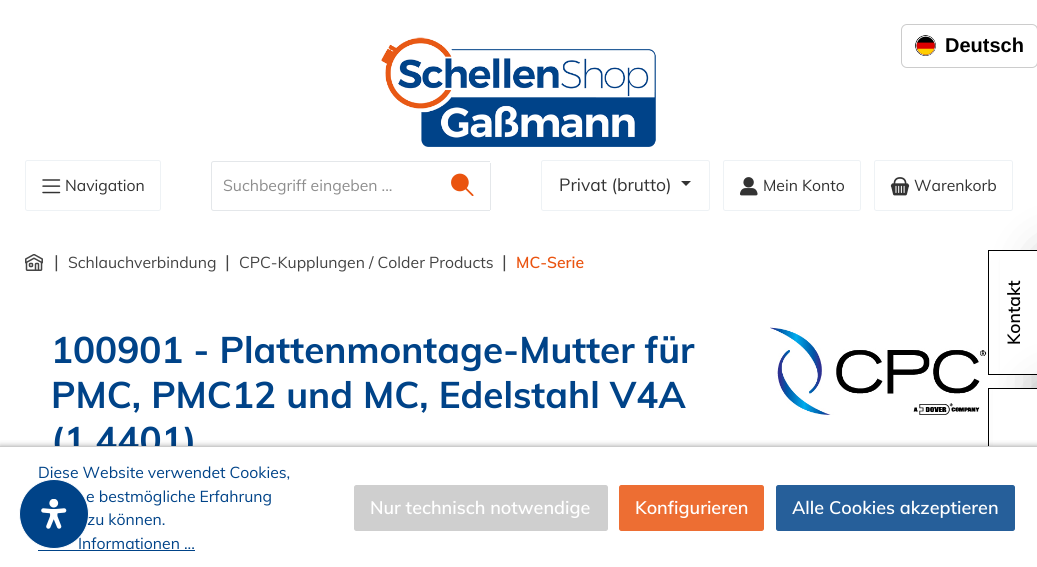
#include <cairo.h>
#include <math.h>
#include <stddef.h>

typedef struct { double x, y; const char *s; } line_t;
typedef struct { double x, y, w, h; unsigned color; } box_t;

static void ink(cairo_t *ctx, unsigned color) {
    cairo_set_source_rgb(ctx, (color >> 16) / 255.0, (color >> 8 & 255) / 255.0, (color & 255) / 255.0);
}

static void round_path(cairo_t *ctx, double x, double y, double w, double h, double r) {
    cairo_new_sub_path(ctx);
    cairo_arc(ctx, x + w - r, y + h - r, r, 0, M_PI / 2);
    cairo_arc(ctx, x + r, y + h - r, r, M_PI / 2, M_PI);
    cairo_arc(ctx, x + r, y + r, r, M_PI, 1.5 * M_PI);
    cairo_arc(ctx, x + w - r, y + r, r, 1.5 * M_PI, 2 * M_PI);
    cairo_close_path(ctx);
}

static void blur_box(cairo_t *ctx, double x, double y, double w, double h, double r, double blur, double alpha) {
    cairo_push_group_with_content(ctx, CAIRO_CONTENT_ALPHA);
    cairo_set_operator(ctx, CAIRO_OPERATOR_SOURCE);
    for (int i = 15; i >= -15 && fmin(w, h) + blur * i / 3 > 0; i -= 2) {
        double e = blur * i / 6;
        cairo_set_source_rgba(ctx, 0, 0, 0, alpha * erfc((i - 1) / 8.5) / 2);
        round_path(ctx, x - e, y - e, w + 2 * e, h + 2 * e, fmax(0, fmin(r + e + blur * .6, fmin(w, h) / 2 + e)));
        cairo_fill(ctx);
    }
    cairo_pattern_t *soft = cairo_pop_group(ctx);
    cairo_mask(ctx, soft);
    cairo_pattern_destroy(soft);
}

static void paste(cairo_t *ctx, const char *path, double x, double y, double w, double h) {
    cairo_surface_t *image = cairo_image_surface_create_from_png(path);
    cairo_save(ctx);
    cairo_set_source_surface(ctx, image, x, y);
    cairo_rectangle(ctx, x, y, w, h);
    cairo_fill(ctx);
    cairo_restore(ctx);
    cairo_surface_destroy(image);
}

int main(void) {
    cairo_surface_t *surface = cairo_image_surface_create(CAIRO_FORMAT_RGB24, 1037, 567);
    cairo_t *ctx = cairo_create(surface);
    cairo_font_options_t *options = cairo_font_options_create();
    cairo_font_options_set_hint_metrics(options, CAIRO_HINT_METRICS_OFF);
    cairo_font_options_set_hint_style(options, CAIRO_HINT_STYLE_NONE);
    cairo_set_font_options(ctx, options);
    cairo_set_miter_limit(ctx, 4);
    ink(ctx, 0xFFFFFF);
    cairo_paint(ctx);
    round_path(ctx, 25.5, 160.5, 135, 50, 2);
    ink(ctx, 0xEEF2F5);
    cairo_set_line_width(ctx, 1);
    cairo_stroke(ctx);
    paste(ctx, "media/1.png", 42, 179, 19, 15);
    cairo_select_font_face(ctx, "Muli", CAIRO_FONT_SLANT_NORMAL, CAIRO_FONT_WEIGHT_NORMAL);
    cairo_set_font_size(ctx, 15.75);
    ink(ctx, 0x333333);
    cairo_move_to(ctx, 65, 191);
    cairo_show_text(ctx, "Navigation");
    cairo_new_path(ctx);
    cairo_move_to(ctx, 213.5, 161.5);
    cairo_line_to(ctx, 435.5, 161.5);
    cairo_line_to(ctx, 435.5, 210.5);
    cairo_line_to(ctx, 213.5, 210.5);
    cairo_curve_to(ctx, 212.5, 210.5, 211.5, 209.5, 211.5, 208.5);
    cairo_line_to(ctx, 211.5, 163.5);
    cairo_curve_to(ctx, 211.5, 162.5, 212.5, 161.5, 213.5, 161.5);
    cairo_close_path(ctx);
    ink(ctx, 0xE4E7EA);
    cairo_stroke(ctx);
    ink(ctx, 0x8E8E8E);
    cairo_move_to(ctx, 223, 191);
    cairo_show_text(ctx, "Suchbegriff eingeben ...");
    ink(ctx, 0xFFFFFF);
    cairo_new_path(ctx);
    cairo_move_to(ctx, 435, 161);
    cairo_line_to(ctx, 488.5, 161);
    cairo_curve_to(ctx, 490, 161, 491, 162, 491, 163.5);
    cairo_line_to(ctx, 491, 208.5);
    cairo_curve_to(ctx, 491, 210, 490, 211, 488.5, 211);
    cairo_line_to(ctx, 435, 211);
    cairo_close_path(ctx);
    cairo_fill(ctx);
    {
        static const box_t items[] = {
            {435, 161, 55, 1, 0xE4E7EA},
            {490, 163, 1, 47, 0xE4E7EA},
            {435, 210, 55, 1, 0xE4E7EA},
        };
        for (size_t i = 0; i < sizeof items / sizeof *items; i++) {
            ink(ctx, items[i].color);
            cairo_rectangle(ctx, items[i].x, items[i].y, items[i].w, items[i].h);
            cairo_fill(ctx);
        }
    }
    paste(ctx, "media/2.png", 451, 173, 23, 23);
    paste(ctx, "media/3.png", 381, 37, 275, 110);
    round_path(ctx, 901.5, 24.5, 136, 43, 5.5);
    ink(ctx, 0xCCCCCC);
    cairo_stroke(ctx);
    paste(ctx, "media/4.png", 915, 35, 21, 21);
    cairo_select_font_face(ctx, "Liberation Sans", CAIRO_FONT_SLANT_NORMAL, CAIRO_FONT_WEIGHT_BOLD);
    cairo_set_font_size(ctx, 20);
    ink(ctx, 0x000000);
    cairo_move_to(ctx, 945, 52);
    cairo_show_text(ctx, "Deutsch");
    round_path(ctx, 541.5, 160.5, 168, 50, 2);
    ink(ctx, 0xEEF2F5);
    cairo_stroke(ctx);
    cairo_select_font_face(ctx, "Muli", CAIRO_FONT_SLANT_NORMAL, CAIRO_FONT_WEIGHT_NORMAL);
    cairo_set_font_size(ctx, 17.5);
    ink(ctx, 0x333333);
    cairo_move_to(ctx, 559, 191);
    cairo_show_text(ctx, "Privat (brutto)");
    cairo_new_path(ctx);
    cairo_move_to(ctx, 681, 181);
    cairo_line_to(ctx, 691, 181);
    cairo_line_to(ctx, 686, 186);
    cairo_close_path(ctx);
    cairo_fill(ctx);
    round_path(ctx, 723.5, 160.5, 137, 50, 2);
    ink(ctx, 0xEEF2F5);
    cairo_stroke(ctx);
    paste(ctx, "media/5.png", 740, 177, 18, 19);
    cairo_set_font_size(ctx, 15.75);
    ink(ctx, 0x333333);
    cairo_move_to(ctx, 763, 191);
    cairo_show_text(ctx, "Mein Konto");
    round_path(ctx, 874.5, 160.5, 138, 50, 2);
    ink(ctx, 0xEEF2F5);
    cairo_stroke(ctx);
    paste(ctx, "media/6.png", 890, 177, 20, 19);
    ink(ctx, 0x333333);
    cairo_move_to(ctx, 914, 191);
    cairo_show_text(ctx, "Warenkorb");
    paste(ctx, "media/7.png", 25, 254, 18, 17);
    cairo_set_font_size(ctx, 18);
    ink(ctx, 0x444444);
    cairo_move_to(ctx, 54, 268);
    cairo_show_text(ctx, "|");
    cairo_set_font_size(ctx, 15.75);
    cairo_move_to(ctx, 68, 268);
    cairo_show_text(ctx, "Schlauchverbindung");
    cairo_set_font_size(ctx, 18);
    cairo_move_to(ctx, 225, 268);
    cairo_show_text(ctx, "|");
    cairo_set_font_size(ctx, 15.75);
    cairo_move_to(ctx, 239, 268);
    cairo_show_text(ctx, "CPC-Kupplungen / Colder Products");
    cairo_set_font_size(ctx, 18);
    cairo_move_to(ctx, 502, 268);
    cairo_show_text(ctx, "|");
    cairo_select_font_face(ctx, "Muli SemiBold", CAIRO_FONT_SLANT_NORMAL, CAIRO_FONT_WEIGHT_NORMAL);
    cairo_set_font_size(ctx, 15.75);
    ink(ctx, 0xEA5410);
    cairo_move_to(ctx, 516, 268);
    cairo_show_text(ctx, "MC-Serie");
    cairo_select_font_face(ctx, "Muli", CAIRO_FONT_SLANT_NORMAL, CAIRO_FONT_WEIGHT_BOLD);
    cairo_set_font_size(ctx, 36.75);
    ink(ctx, 0x004388);
    {
        static const line_t items[] = {
            {51, 363, "100901 - Plattenmontage-Mutter für"},
            {51, 408, "PMC, PMC12 und MC, Edelstahl V4A"},
            {51, 453, "(1.4401)"},
        };
        for (size_t i = 0; i < sizeof items / sizeof *items; i++) {
            cairo_move_to(ctx, items[i].x, items[i].y);
            cairo_show_text(ctx, items[i].s);
        }
    }
    paste(ctx, "media/8.png", 770, 327, 217, 88);
    ink(ctx, 0x000000);
    blur_box(ctx, 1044, 256, 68, 250, 0, 25, 0.25);
    {
        static const box_t items[] = {
            {1000, 251, 37, 123, 0xFFFFFF},
            {988, 250, 1, 125, 0x000000},
            {988, 250, 49, 1, 0x000000},
            {988, 374, 49, 1, 0x000000},
        };
        for (size_t i = 0; i < sizeof items / sizeof *items; i++) {
            ink(ctx, items[i].color);
            cairo_rectangle(ctx, items[i].x, items[i].y, items[i].w, items[i].h);
            cairo_fill(ctx);
        }
    }
    cairo_select_font_face(ctx, "Muli SemiBold", CAIRO_FONT_SLANT_NORMAL, CAIRO_FONT_WEIGHT_NORMAL);
    cairo_set_font_size(ctx, 17.5);
    cairo_save(ctx);
    cairo_translate(ctx, 1020, 345);
    cairo_rotate(ctx, -90 * M_PI / 180);
    cairo_move_to(ctx, 0, 0);
    cairo_show_text(ctx, "Kontakt");
    cairo_restore(ctx);
    ink(ctx, 0x000000);
    blur_box(ctx, 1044, 394, 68, 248, 0, 25, 0.25);
    {
        static const box_t items[] = {
            {993, 389, 44, 57, 0xFFFFFF},
            {988, 388, 1, 58, 0x000000},
            {988, 388, 49, 1, 0x000000},
        };
        for (size_t i = 0; i < sizeof items / sizeof *items; i++) {
            ink(ctx, items[i].color);
            cairo_rectangle(ctx, items[i].x, items[i].y, items[i].w, items[i].h);
            cairo_fill(ctx);
        }
    }
    ink(ctx, 0x000000);
    blur_box(ctx, 0, 446, 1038, 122, 0, 3, 0.33);
    ink(ctx, 0xFFFFFF);
    cairo_rectangle(ctx, 0, 447, 1037, 120);
    cairo_fill(ctx);
    ink(ctx, 0xCCCCCC);
    cairo_rectangle(ctx, 0, 446, 1037, 1);
    cairo_fill(ctx);
    cairo_select_font_face(ctx, "Muli", CAIRO_FONT_SLANT_NORMAL, CAIRO_FONT_WEIGHT_NORMAL);
    cairo_set_font_size(ctx, 15.75);
    ink(ctx, 0x004388);
    {
        static const line_t items[] = {
            {38, 478, "Diese Website verwendet Cookies,"},
            {86, 502, "e bestmögliche Erfahrung"},
            {87, 525, "zu können."},
            {78, 549, "Informationen ..."},
        };
        for (size_t i = 0; i < sizeof items / sizeof *items; i++) {
            cairo_move_to(ctx, items[i].x, items[i].y);
            cairo_show_text(ctx, items[i].s);
        }
    }
    cairo_rectangle(ctx, 38, 550, 157, 1);
    cairo_fill(ctx);
    ink(ctx, 0xCFCFCF);
    round_path(ctx, 354.5, 485.5, 253, 45, 2);
    cairo_fill_preserve(ctx);
    cairo_stroke(ctx);
    cairo_select_font_face(ctx, "Muli SemiBold", CAIRO_FONT_SLANT_NORMAL, CAIRO_FONT_WEIGHT_NORMAL);
    cairo_set_font_size(ctx, 18);
    ink(ctx, 0xFFFFFF);
    cairo_move_to(ctx, 370, 514);
    cairo_show_text(ctx, "Nur technisch notwendige");
    ink(ctx, 0xED6E33);
    round_path(ctx, 619.5, 485.5, 144, 45, 2);
    cairo_fill_preserve(ctx);
    cairo_stroke(ctx);
    ink(ctx, 0xFFFFFF);
    cairo_move_to(ctx, 635, 514);
    cairo_show_text(ctx, "Konfigurieren");
    ink(ctx, 0x265F9A);
    round_path(ctx, 776.5, 485.5, 238, 45, 2);
    cairo_fill_preserve(ctx);
    cairo_stroke(ctx);
    ink(ctx, 0xFFFFFF);
    cairo_move_to(ctx, 792, 514);
    cairo_show_text(ctx, "Alle Cookies akzeptieren");
    ink(ctx, 0x004388);
    cairo_new_path(ctx);
    cairo_arc(ctx, 54, 514, 34.5, 0, 2 * M_PI);
    cairo_fill_preserve(ctx);
    ink(ctx, 0xFFFFFF);
    cairo_stroke(ctx);
    paste(ctx, "media/9.png", 41, 499, 26, 30);
    cairo_surface_write_to_png(surface, "image.png");
    cairo_font_options_destroy(options);
    cairo_destroy(ctx);
    cairo_surface_destroy(surface);
    return 0;
}
